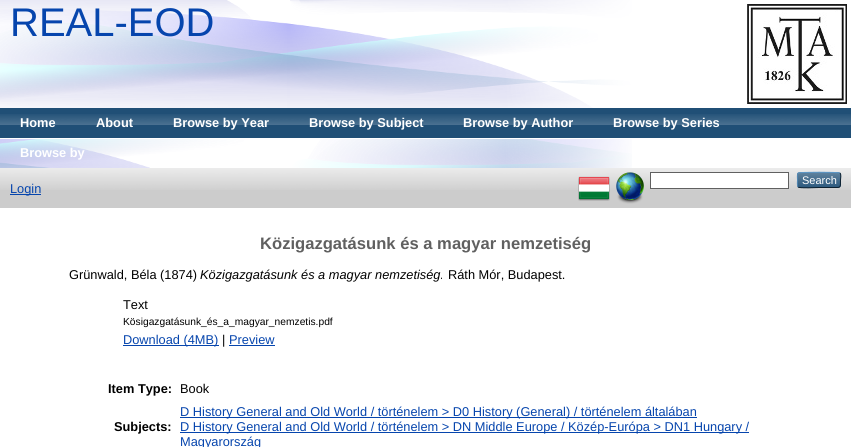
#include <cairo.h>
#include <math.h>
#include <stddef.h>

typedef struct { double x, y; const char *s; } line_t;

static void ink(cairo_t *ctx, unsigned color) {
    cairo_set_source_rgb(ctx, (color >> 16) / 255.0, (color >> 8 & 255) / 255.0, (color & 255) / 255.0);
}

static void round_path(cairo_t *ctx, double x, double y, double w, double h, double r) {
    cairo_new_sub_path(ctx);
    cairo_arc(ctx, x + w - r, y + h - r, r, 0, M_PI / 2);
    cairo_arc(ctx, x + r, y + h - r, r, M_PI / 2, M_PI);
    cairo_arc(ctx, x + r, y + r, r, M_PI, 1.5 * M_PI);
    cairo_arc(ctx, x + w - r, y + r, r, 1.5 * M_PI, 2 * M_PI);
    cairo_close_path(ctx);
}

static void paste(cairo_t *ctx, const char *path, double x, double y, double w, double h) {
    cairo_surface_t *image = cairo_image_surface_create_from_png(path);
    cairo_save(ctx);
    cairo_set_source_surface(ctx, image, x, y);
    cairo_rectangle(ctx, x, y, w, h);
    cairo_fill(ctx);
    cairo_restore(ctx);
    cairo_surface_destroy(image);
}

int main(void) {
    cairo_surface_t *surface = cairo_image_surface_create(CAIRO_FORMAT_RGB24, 851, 447);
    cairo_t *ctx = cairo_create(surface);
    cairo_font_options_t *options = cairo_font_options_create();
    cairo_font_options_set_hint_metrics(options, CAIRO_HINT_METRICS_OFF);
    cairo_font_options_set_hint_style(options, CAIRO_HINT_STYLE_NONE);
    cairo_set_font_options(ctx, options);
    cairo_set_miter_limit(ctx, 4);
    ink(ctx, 0xFFFFFF);
    cairo_paint(ctx);
    paste(ctx, "media/1.png", 0, 0, 632, 168);
    cairo_select_font_face(ctx, "Liberation Sans", CAIRO_FONT_SLANT_NORMAL, CAIRO_FONT_WEIGHT_NORMAL);
    cairo_set_font_size(ctx, 40);
    ink(ctx, 0x0645AD);
    cairo_move_to(ctx, 10, 36);
    cairo_show_text(ctx, "REAL-EOD");
    paste(ctx, "media/2.png", 747, 4, 100, 100);
    ink(ctx, 0x204F76);
    cairo_rectangle(ctx, 0, 108, 851, 30);
    cairo_fill(ctx);
    paste(ctx, "media/3.png", 0, 114, 851, 11);
    ink(ctx, 0xFFFFFF);
    cairo_rectangle(ctx, 0, 138, 632, 1);
    cairo_fill(ctx);
    cairo_select_font_face(ctx, "Liberation Sans", CAIRO_FONT_SLANT_NORMAL, CAIRO_FONT_WEIGHT_BOLD);
    cairo_set_font_size(ctx, 12.8);
    {
        static const line_t items[] = {
            {20, 127, "Home"},
            {96, 127, "About"},
            {173, 127, "Browse by Year"},
            {309, 127, "Browse by Subject"},
            {463, 127, "Browse by Author"},
            {613, 127, "Browse by Series"},
            {20, 157, "Browse by"},
        };
        for (size_t i = 0; i < sizeof items / sizeof *items; i++) {
            cairo_move_to(ctx, items[i].x, items[i].y);
            cairo_show_text(ctx, items[i].s);
        }
    }
    ink(ctx, 0xCCCCCC);
    cairo_rectangle(ctx, 0, 168, 851, 40);
    cairo_fill(ctx);
    paste(ctx, "media/4.png", 0, 168, 851, 22);
    paste(ctx, "media/5.png", 578, 176, 32, 25);
    paste(ctx, "media/6.png", 616, 172, 28, 32);
    ink(ctx, 0xFFFFFF);
    cairo_rectangle(ctx, 650.5, 172.5, 138, 16);
    cairo_fill_preserve(ctx);
    ink(ctx, 0x606060);
    cairo_set_line_width(ctx, 1);
    cairo_stroke(ctx);
    ink(ctx, 0x1F4F76);
    round_path(ctx, 797, 172, 44, 16, 3);
    cairo_fill(ctx);
    paste(ctx, "media/7.png", 797, 172, 44, 16);
    cairo_new_path(ctx);
    cairo_move_to(ctx, 798, 173);
    cairo_curve_to(ctx, 799.5, 172, 838.5, 172, 840, 173);
    ink(ctx, 0x5B97C7);
    cairo_stroke(ctx);
    cairo_new_path(ctx);
    cairo_move_to(ctx, 840, 173);
    cairo_curve_to(ctx, 841.5, 175, 840.5, 178, 840.5, 180);
    cairo_curve_to(ctx, 840.5, 188.5, 841, 187.5, 831.5, 187.5);
    cairo_line_to(ctx, 819, 187.5);
    cairo_curve_to(ctx, 816, 187.5, 800, 188.5, 798, 187);
    ink(ctx, 0x0D2131);
    cairo_stroke(ctx);
    cairo_new_path(ctx);
    cairo_move_to(ctx, 798, 187);
    cairo_curve_to(ctx, 797, 185.5, 797.5, 181.5, 797.5, 180);
    cairo_curve_to(ctx, 797.5, 178.5, 797, 174.5, 798, 173);
    ink(ctx, 0x5287B3);
    cairo_stroke(ctx);
    cairo_select_font_face(ctx, "Liberation Sans", CAIRO_FONT_SLANT_NORMAL, CAIRO_FONT_WEIGHT_NORMAL);
    cairo_set_font_size(ctx, 11);
    ink(ctx, 0xFFFFFF);
    cairo_move_to(ctx, 802, 184);
    cairo_show_text(ctx, "Search");
    ink(ctx, 0x0645AD);
    cairo_rectangle(ctx, 10, 194, 31, 1);
    cairo_fill(ctx);
    cairo_set_font_size(ctx, 12.8);
    cairo_move_to(ctx, 10, 193);
    cairo_show_text(ctx, "Login");
    cairo_select_font_face(ctx, "Liberation Sans", CAIRO_FONT_SLANT_NORMAL, CAIRO_FONT_WEIGHT_BOLD);
    cairo_set_font_size(ctx, 16.6);
    ink(ctx, 0x606060);
    cairo_move_to(ctx, 260, 249);
    cairo_show_text(ctx, "Közigazgatásunk és a magyar nemzetiség");
    cairo_select_font_face(ctx, "Liberation Sans", CAIRO_FONT_SLANT_NORMAL, CAIRO_FONT_WEIGHT_NORMAL);
    cairo_set_font_size(ctx, 12.8);
    ink(ctx, 0x000000);
    cairo_move_to(ctx, 69, 279);
    cairo_show_text(ctx, "Grünwald, Béla (1874)");
    cairo_select_font_face(ctx, "Liberation Sans", CAIRO_FONT_SLANT_ITALIC, CAIRO_FONT_WEIGHT_NORMAL);
    cairo_move_to(ctx, 200, 279);
    cairo_show_text(ctx, "Közigazgatásunk és a magyar nemzetiség.");
    cairo_select_font_face(ctx, "Liberation Sans", CAIRO_FONT_SLANT_NORMAL, CAIRO_FONT_WEIGHT_NORMAL);
    cairo_move_to(ctx, 448, 279);
    cairo_show_text(ctx, "Ráth Mór, Budapest.");
    cairo_move_to(ctx, 123, 309);
    cairo_show_text(ctx, "Text");
    cairo_set_font_size(ctx, 10.25);
    cairo_move_to(ctx, 123, 325);
    cairo_show_text(ctx, "Kösigazgatásunk_és_a_magyar_nemzetis.pdf");
    ink(ctx, 0x0645AD);
    cairo_rectangle(ctx, 123, 345, 96, 1);
    cairo_fill(ctx);
    cairo_set_font_size(ctx, 12.8);
    cairo_move_to(ctx, 123, 344);
    cairo_show_text(ctx, "Download (4MB)");
    ink(ctx, 0x000000);
    cairo_move_to(ctx, 222, 344);
    cairo_show_text(ctx, "|");
    ink(ctx, 0x0645AD);
    cairo_move_to(ctx, 229, 344);
    cairo_show_text(ctx, "Preview");
    cairo_rectangle(ctx, 229, 345, 46, 1);
    cairo_fill(ctx);
    cairo_select_font_face(ctx, "Liberation Sans", CAIRO_FONT_SLANT_NORMAL, CAIRO_FONT_WEIGHT_BOLD);
    ink(ctx, 0x000000);
    cairo_move_to(ctx, 108, 393);
    cairo_show_text(ctx, "Item Type:");
    cairo_select_font_face(ctx, "Liberation Sans", CAIRO_FONT_SLANT_NORMAL, CAIRO_FONT_WEIGHT_NORMAL);
    cairo_move_to(ctx, 180, 393);
    cairo_show_text(ctx, "Book");
    cairo_select_font_face(ctx, "Liberation Sans", CAIRO_FONT_SLANT_NORMAL, CAIRO_FONT_WEIGHT_BOLD);
    cairo_move_to(ctx, 114, 431);
    cairo_show_text(ctx, "Subjects:");
    ink(ctx, 0x0645AD);
    cairo_rectangle(ctx, 180, 417, 517, 1);
    cairo_fill(ctx);
    cairo_select_font_face(ctx, "Liberation Sans", CAIRO_FONT_SLANT_NORMAL, CAIRO_FONT_WEIGHT_NORMAL);
    cairo_move_to(ctx, 180, 416);
    cairo_show_text(ctx, "D History General and Old World / történelem > D0 History (General) / történelem általában");
    cairo_rectangle(ctx, 180, 432, 569, 1);
    cairo_fill(ctx);
    cairo_move_to(ctx, 180, 431);
    cairo_show_text(ctx, "D History General and Old World / történelem > DN Middle Europe / Közép-Európa > DN1 Hungary /");
    cairo_move_to(ctx, 180, 446);
    cairo_show_text(ctx, "Magyarország");
    cairo_surface_write_to_png(surface, "image.png");
    cairo_font_options_destroy(options);
    cairo_destroy(ctx);
    cairo_surface_destroy(surface);
    return 0;
}
